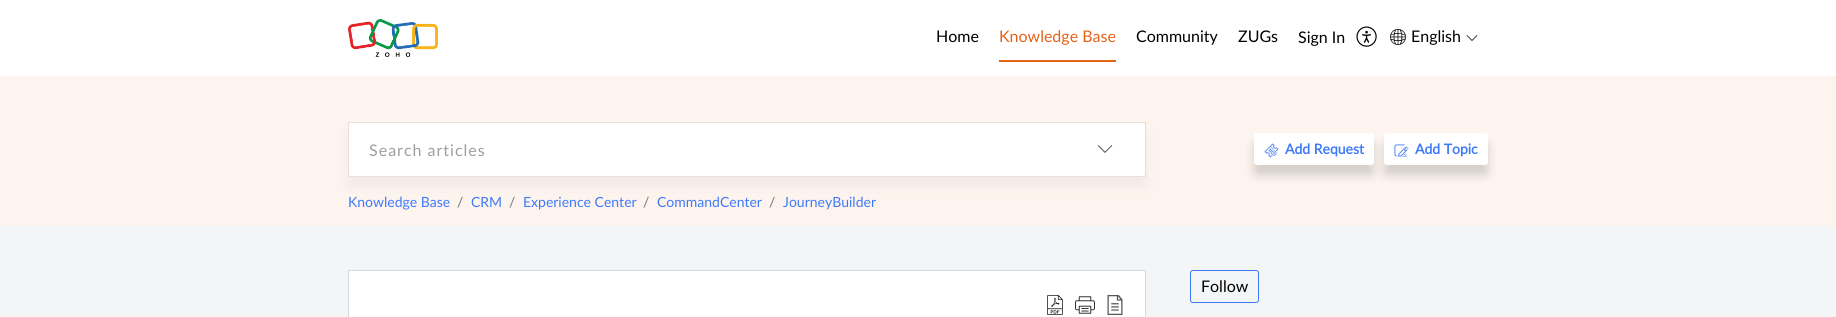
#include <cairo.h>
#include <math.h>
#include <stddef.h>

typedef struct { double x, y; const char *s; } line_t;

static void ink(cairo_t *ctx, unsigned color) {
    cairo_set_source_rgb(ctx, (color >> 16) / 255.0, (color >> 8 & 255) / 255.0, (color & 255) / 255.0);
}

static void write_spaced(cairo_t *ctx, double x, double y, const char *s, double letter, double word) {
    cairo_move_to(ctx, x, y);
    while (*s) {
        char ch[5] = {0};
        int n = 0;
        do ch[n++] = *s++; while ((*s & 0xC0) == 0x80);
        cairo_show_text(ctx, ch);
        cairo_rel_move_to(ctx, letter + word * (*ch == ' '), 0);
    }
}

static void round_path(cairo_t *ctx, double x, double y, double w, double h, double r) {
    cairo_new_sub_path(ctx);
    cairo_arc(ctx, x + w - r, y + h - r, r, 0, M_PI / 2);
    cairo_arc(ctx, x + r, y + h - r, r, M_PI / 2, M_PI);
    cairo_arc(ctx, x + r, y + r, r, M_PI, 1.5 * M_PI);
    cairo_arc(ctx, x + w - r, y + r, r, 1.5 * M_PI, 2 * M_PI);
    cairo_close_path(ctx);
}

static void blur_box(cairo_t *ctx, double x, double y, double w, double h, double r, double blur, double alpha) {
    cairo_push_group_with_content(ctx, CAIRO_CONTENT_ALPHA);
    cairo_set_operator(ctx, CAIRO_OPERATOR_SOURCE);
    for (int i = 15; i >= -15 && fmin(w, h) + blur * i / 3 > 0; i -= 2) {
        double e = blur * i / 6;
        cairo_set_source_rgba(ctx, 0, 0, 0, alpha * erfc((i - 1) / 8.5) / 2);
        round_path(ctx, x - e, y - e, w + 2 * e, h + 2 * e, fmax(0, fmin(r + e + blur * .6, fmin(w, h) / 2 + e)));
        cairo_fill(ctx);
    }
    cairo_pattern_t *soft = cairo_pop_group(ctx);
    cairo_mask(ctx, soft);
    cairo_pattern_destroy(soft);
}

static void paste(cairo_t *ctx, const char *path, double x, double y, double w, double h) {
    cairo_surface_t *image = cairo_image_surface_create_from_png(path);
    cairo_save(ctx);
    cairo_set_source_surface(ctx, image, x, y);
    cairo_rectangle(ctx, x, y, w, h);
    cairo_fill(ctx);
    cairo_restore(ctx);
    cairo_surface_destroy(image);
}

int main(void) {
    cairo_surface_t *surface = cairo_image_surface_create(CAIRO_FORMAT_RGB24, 1836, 317);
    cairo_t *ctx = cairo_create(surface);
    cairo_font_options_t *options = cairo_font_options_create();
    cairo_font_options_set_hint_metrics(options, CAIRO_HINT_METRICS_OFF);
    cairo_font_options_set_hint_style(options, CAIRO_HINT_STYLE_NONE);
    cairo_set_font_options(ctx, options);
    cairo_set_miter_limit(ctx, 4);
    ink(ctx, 0xF3F5F7);
    cairo_paint(ctx);
    ink(ctx, 0xFFFFFF);
    cairo_rectangle(ctx, 0, 0, 1836, 76);
    cairo_fill(ctx);
    paste(ctx, "media/1.png", 348, 19, 90, 38);
    cairo_select_font_face(ctx, "Lato", CAIRO_FONT_SLANT_NORMAL, CAIRO_FONT_WEIGHT_NORMAL);
    cairo_set_font_size(ctx, 16);
    ink(ctx, 0x000000);
    cairo_move_to(ctx, 936, 42);
    cairo_show_text(ctx, "Home");
    ink(ctx, 0xE46317);
    cairo_rectangle(ctx, 999, 60, 117, 2);
    cairo_fill(ctx);
    cairo_move_to(ctx, 999, 42);
    cairo_show_text(ctx, "Knowledge Base");
    ink(ctx, 0x000000);
    {
        static const line_t items[] = {
            {1136, 42, "Community"},
            {1238, 42, "ZUGs"},
            {1298, 43, "Sign In"},
        };
        for (size_t i = 0; i < sizeof items / sizeof *items; i++) {
            cairo_move_to(ctx, items[i].x, items[i].y);
            cairo_show_text(ctx, items[i].s);
        }
    }
    paste(ctx, "media/2.png", 1356, 26, 21, 21);
    paste(ctx, "media/3.png", 1390, 29, 16, 16);
    cairo_move_to(ctx, 1411, 42);
    cairo_show_text(ctx, "English");
    paste(ctx, "media/4.png", 1466, 35, 12, 6);
    ink(ctx, 0xFDF4EF);
    cairo_rectangle(ctx, 0, 76, 1836, 150);
    cairo_fill(ctx);
    ink(ctx, 0xF0E8E5);
    blur_box(ctx, 348, 132, 798, 55, 0, 5, 0.84);
    cairo_rectangle(ctx, 348.5, 122.5, 797, 54);
    ink(ctx, 0xEADFDB);
    cairo_set_line_width(ctx, 1);
    cairo_stroke(ctx);
    ink(ctx, 0xFFFFFF);
    round_path(ctx, 349, 123, 796, 53, 3);
    cairo_fill(ctx);
    round_path(ctx, 349, 123, 716, 53, 3);
    cairo_fill(ctx);
    ink(ctx, 0x9E9E9E);
    write_spaced(ctx, 369, 156, "Search articles", 1, 0);
    cairo_set_source_rgba(ctx, 1, 1, 1, 0.5);
    cairo_new_path(ctx);
    cairo_move_to(ctx, 1065, 123);
    cairo_line_to(ctx, 1142, 123);
    cairo_curve_to(ctx, 1143.5, 123, 1145, 124.5, 1145, 126);
    cairo_line_to(ctx, 1145, 173);
    cairo_curve_to(ctx, 1145, 174.5, 1143.5, 176, 1142, 176);
    cairo_line_to(ctx, 1065, 176);
    cairo_close_path(ctx);
    cairo_fill(ctx);
    paste(ctx, "media/5.png", 1097, 145, 16, 8);
    ink(ctx, 0x000000);
    blur_box(ctx, 1254, 143, 120, 32, 3, 5, 0.16);
    ink(ctx, 0xFFFFFF);
    round_path(ctx, 1254, 133, 120, 32, 3);
    cairo_fill(ctx);
    paste(ctx, "media/6.png", 1264, 143, 15, 15);
    cairo_select_font_face(ctx, "Lato", CAIRO_FONT_SLANT_NORMAL, CAIRO_FONT_WEIGHT_BOLD);
    cairo_set_font_size(ctx, 14);
    ink(ctx, 0x3E7AF7);
    cairo_move_to(ctx, 1285, 154);
    cairo_show_text(ctx, "Add Request");
    ink(ctx, 0x000000);
    blur_box(ctx, 1384, 143, 104, 32, 3, 5, 0.16);
    ink(ctx, 0xFFFFFF);
    round_path(ctx, 1384, 133, 104, 32, 3);
    cairo_fill(ctx);
    paste(ctx, "media/7.png", 1394, 144, 15, 13);
    ink(ctx, 0x3E7AF7);
    cairo_move_to(ctx, 1415, 154);
    cairo_show_text(ctx, "Add Topic");
    cairo_select_font_face(ctx, "Lato", CAIRO_FONT_SLANT_NORMAL, CAIRO_FONT_WEIGHT_NORMAL);
    cairo_move_to(ctx, 348, 207);
    cairo_show_text(ctx, "Knowledge Base");
    ink(ctx, 0x777777);
    cairo_move_to(ctx, 457, 207);
    cairo_show_text(ctx, "/");
    ink(ctx, 0x3E7AF7);
    cairo_move_to(ctx, 471, 207);
    cairo_show_text(ctx, "CRM");
    ink(ctx, 0x777777);
    cairo_move_to(ctx, 509, 207);
    cairo_show_text(ctx, "/");
    ink(ctx, 0x3E7AF7);
    cairo_move_to(ctx, 523, 207);
    cairo_show_text(ctx, "Experience Center");
    ink(ctx, 0x777777);
    cairo_move_to(ctx, 643, 207);
    cairo_show_text(ctx, "/");
    ink(ctx, 0x3E7AF7);
    cairo_move_to(ctx, 657, 207);
    cairo_show_text(ctx, "CommandCenter");
    ink(ctx, 0x777777);
    cairo_move_to(ctx, 769, 207);
    cairo_show_text(ctx, "/");
    ink(ctx, 0x3E7AF7);
    cairo_move_to(ctx, 783, 207);
    cairo_show_text(ctx, "JourneyBuilder");
    ink(ctx, 0xFFFFFF);
    cairo_rectangle(ctx, 348.5, 270.5, 797, 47);
    cairo_fill_preserve(ctx);
    ink(ctx, 0xD4DADF);
    cairo_stroke(ctx);
    paste(ctx, "media/8.png", 1047, 295, 16, 20);
    paste(ctx, "media/9.png", 1075, 296, 20, 18);
    paste(ctx, "media/10.png", 1107, 295, 16, 20);
    round_path(ctx, 1190.5, 270.5, 68, 32, 2.5);
    ink(ctx, 0x3E7AF7);
    cairo_stroke(ctx);
    cairo_set_font_size(ctx, 16);
    ink(ctx, 0x000000);
    cairo_move_to(ctx, 1201, 292);
    cairo_show_text(ctx, "Follow");
    cairo_surface_write_to_png(surface, "image.png");
    cairo_font_options_destroy(options);
    cairo_destroy(ctx);
    cairo_surface_destroy(surface);
    return 0;
}
